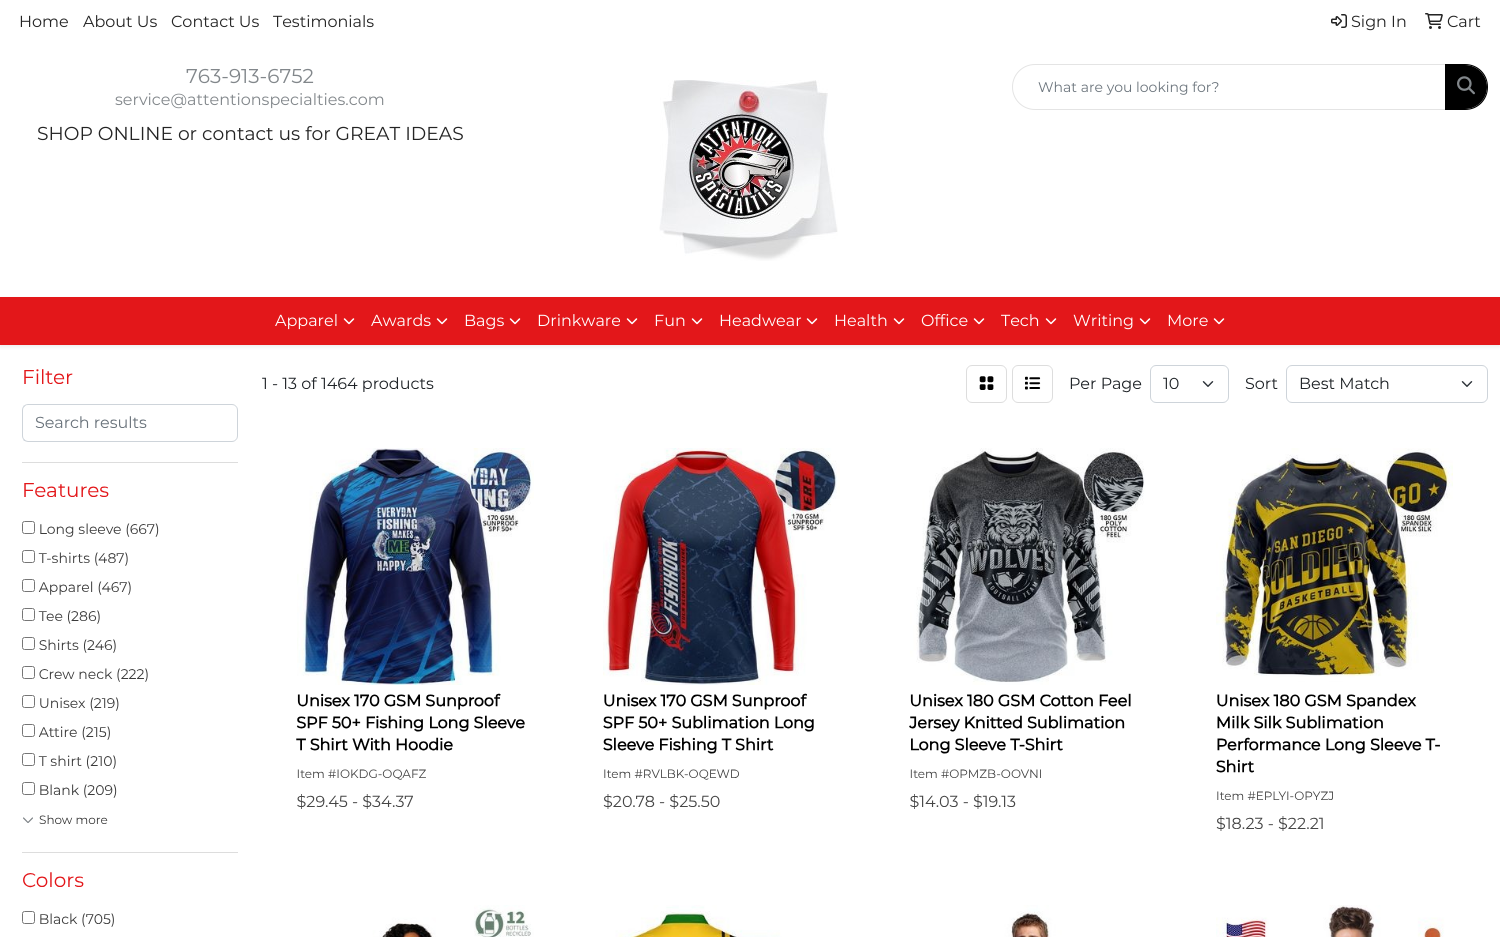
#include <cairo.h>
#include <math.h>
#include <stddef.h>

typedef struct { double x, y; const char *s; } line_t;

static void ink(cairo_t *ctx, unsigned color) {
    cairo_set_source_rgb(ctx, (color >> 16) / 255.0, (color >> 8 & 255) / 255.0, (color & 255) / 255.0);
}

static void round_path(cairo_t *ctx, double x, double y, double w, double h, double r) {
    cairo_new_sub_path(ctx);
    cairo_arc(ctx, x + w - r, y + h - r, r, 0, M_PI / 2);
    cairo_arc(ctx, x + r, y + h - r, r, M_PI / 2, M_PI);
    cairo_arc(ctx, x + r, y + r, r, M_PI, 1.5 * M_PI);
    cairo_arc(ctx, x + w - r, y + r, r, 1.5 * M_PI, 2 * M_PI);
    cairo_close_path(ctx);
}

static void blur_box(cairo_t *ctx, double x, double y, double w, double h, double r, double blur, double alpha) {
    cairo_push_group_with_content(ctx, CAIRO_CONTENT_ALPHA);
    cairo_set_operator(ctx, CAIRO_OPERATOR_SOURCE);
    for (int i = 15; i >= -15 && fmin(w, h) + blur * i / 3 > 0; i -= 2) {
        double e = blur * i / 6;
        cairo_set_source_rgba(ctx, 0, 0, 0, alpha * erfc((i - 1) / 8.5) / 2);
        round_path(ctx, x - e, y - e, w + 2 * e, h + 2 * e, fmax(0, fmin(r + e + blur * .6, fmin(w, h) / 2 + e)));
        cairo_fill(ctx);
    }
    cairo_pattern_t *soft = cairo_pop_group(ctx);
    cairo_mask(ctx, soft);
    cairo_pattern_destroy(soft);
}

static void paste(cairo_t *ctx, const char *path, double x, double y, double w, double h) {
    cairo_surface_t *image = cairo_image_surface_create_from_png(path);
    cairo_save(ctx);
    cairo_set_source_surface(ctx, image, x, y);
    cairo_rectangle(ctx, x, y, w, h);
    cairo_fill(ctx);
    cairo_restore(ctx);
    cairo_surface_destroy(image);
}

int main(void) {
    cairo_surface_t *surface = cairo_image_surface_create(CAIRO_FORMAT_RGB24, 1500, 937);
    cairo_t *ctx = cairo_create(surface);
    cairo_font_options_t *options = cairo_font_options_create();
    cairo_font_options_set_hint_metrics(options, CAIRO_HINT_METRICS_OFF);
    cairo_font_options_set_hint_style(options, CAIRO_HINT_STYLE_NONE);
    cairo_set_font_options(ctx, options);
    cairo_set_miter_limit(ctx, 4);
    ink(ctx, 0xFFFFFF);
    cairo_paint(ctx);
    cairo_select_font_face(ctx, "Montserrat Thin", CAIRO_FONT_SLANT_NORMAL, CAIRO_FONT_WEIGHT_NORMAL);
    cairo_set_font_size(ctx, 16);
    ink(ctx, 0x242424);
    {
        static const line_t items[] = {
            {19, 27, "Home"},
            {83, 27, "About Us"},
            {171, 27, "Contact Us"},
            {273, 27, "Testimonials"},
        };
        for (size_t i = 0; i < sizeof items / sizeof *items; i++) {
            cairo_move_to(ctx, items[i].x, items[i].y);
            cairo_show_text(ctx, items[i].s);
        }
    }
    paste(ctx, "media/1.png", 1331, 14, 16, 14);
    cairo_move_to(ctx, 1351, 27);
    cairo_show_text(ctx, "Sign In");
    paste(ctx, "media/2.png", 1425, 13, 18, 16);
    cairo_move_to(ctx, 1447, 27);
    cairo_show_text(ctx, "Cart");
    cairo_set_font_size(ctx, 20);
    ink(ctx, 0x82878B);
    cairo_move_to(ctx, 186, 83);
    cairo_show_text(ctx, "763-913-6752");
    cairo_set_font_size(ctx, 16);
    cairo_move_to(ctx, 115, 105);
    cairo_show_text(ctx, "service@attentionspecialties.com");
    cairo_set_font_size(ctx, 18.7);
    ink(ctx, 0x242424);
    cairo_move_to(ctx, 37, 140);
    cairo_show_text(ctx, "SHOP ONLINE or contact us for GREAT IDEAS");
    paste(ctx, "media/3.png", 659, 80, 179, 181);
    cairo_new_path(ctx);
    cairo_move_to(ctx, 1035, 64.5);
    cairo_line_to(ctx, 1445.5, 64.5);
    cairo_line_to(ctx, 1445.5, 109.5);
    cairo_line_to(ctx, 1035, 109.5);
    cairo_curve_to(ctx, 1022.5, 109.5, 1012.5, 99.5, 1012.5, 87);
    cairo_curve_to(ctx, 1012.5, 74.5, 1022.5, 64.5, 1035, 64.5);
    cairo_close_path(ctx);
    ink(ctx, 0xE4E4E4);
    cairo_set_line_width(ctx, 1);
    cairo_stroke(ctx);
    cairo_set_font_size(ctx, 14);
    ink(ctx, 0x6C757D);
    cairo_move_to(ctx, 1038, 92);
    cairo_show_text(ctx, "What are you looking for?");
    ink(ctx, 0x000000);
    cairo_new_path(ctx);
    cairo_move_to(ctx, 1445, 65);
    cairo_line_to(ctx, 1465, 65);
    cairo_curve_to(ctx, 1477, 65, 1487, 75, 1487, 87);
    cairo_curve_to(ctx, 1487, 99, 1477, 109, 1465, 109);
    cairo_line_to(ctx, 1445, 109);
    cairo_close_path(ctx);
    cairo_fill(ctx);
    cairo_set_fill_rule(ctx, CAIRO_FILL_RULE_EVEN_ODD);
    cairo_new_path(ctx);
    cairo_move_to(ctx, 1445, 64);
    cairo_line_to(ctx, 1465, 64);
    cairo_curve_to(ctx, 1478, 64, 1488, 74, 1488, 87);
    cairo_curve_to(ctx, 1488, 100, 1478, 110, 1465, 110);
    cairo_line_to(ctx, 1445, 110);
    cairo_close_path(ctx);
    cairo_move_to(ctx, 1445, 65);
    cairo_line_to(ctx, 1465, 65);
    cairo_curve_to(ctx, 1477, 65, 1487, 75, 1487, 87);
    cairo_curve_to(ctx, 1487, 99, 1477, 109, 1465, 109);
    cairo_line_to(ctx, 1445, 109);
    cairo_close_path(ctx);
    cairo_fill(ctx);
    paste(ctx, "media/4.png", 1457, 76, 18, 19);
    ink(ctx, 0x000000);
    blur_box(ctx, 0, 299, 1500, 48, 0, 2, 0.07);
    ink(ctx, 0xE3171A);
    cairo_rectangle(ctx, 0, 297, 1500, 48);
    cairo_fill(ctx);
    cairo_set_font_size(ctx, 16);
    ink(ctx, 0xFFFFFF);
    cairo_move_to(ctx, 275, 326);
    cairo_show_text(ctx, "Apparel");
    paste(ctx, "media/5.png", 343, 318, 12, 7);
    cairo_move_to(ctx, 371, 326);
    cairo_show_text(ctx, "Awards");
    paste(ctx, "media/5.png", 436, 318, 12, 7);
    cairo_move_to(ctx, 464, 326);
    cairo_show_text(ctx, "Bags");
    paste(ctx, "media/5.png", 509, 318, 12, 7);
    cairo_move_to(ctx, 537, 326);
    cairo_show_text(ctx, "Drinkware");
    paste(ctx, "media/5.png", 626, 318, 12, 7);
    cairo_move_to(ctx, 654, 326);
    cairo_show_text(ctx, "Fun");
    paste(ctx, "media/5.png", 691, 318, 12, 7);
    cairo_move_to(ctx, 719, 326);
    cairo_show_text(ctx, "Headwear");
    paste(ctx, "media/5.png", 806, 318, 12, 7);
    cairo_move_to(ctx, 834, 326);
    cairo_show_text(ctx, "Health");
    paste(ctx, "media/5.png", 893, 318, 12, 7);
    cairo_move_to(ctx, 921, 326);
    cairo_show_text(ctx, "Office");
    paste(ctx, "media/5.png", 973, 318, 12, 7);
    cairo_move_to(ctx, 1001, 326);
    cairo_show_text(ctx, "Tech");
    paste(ctx, "media/5.png", 1045, 318, 12, 7);
    cairo_move_to(ctx, 1073, 326);
    cairo_show_text(ctx, "Writing");
    paste(ctx, "media/5.png", 1139, 318, 12, 7);
    cairo_move_to(ctx, 1167, 326);
    cairo_show_text(ctx, "More");
    paste(ctx, "media/5.png", 1213, 318, 12, 7);
    paste(ctx, "media/6.png", 22, 365, 1466, 572);
    cairo_surface_write_to_png(surface, "image.png");
    cairo_font_options_destroy(options);
    cairo_destroy(ctx);
    cairo_surface_destroy(surface);
    return 0;
}
